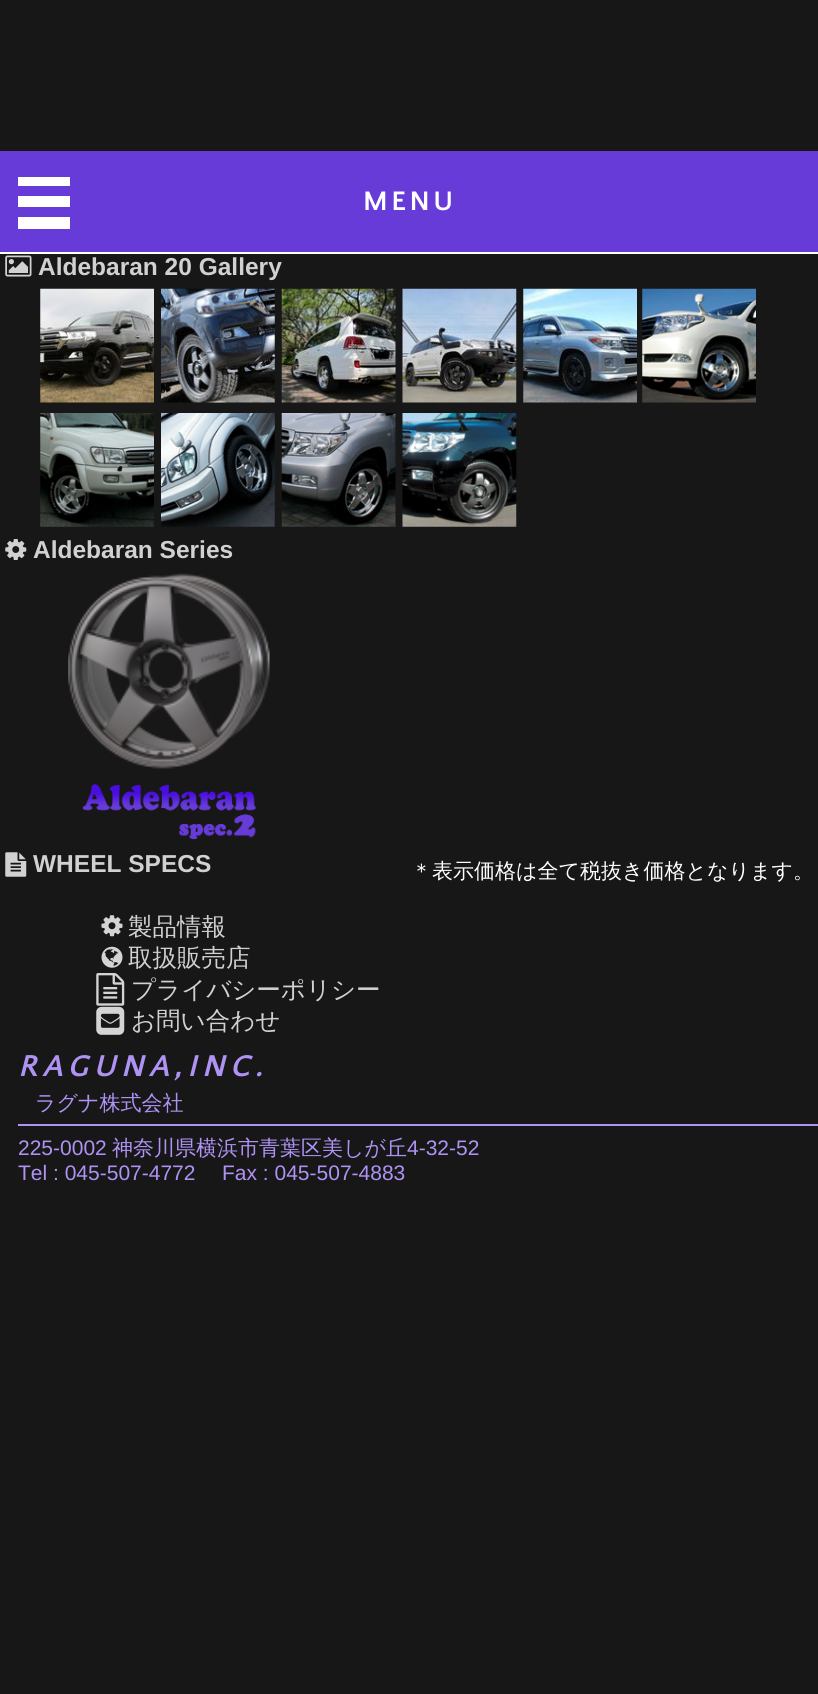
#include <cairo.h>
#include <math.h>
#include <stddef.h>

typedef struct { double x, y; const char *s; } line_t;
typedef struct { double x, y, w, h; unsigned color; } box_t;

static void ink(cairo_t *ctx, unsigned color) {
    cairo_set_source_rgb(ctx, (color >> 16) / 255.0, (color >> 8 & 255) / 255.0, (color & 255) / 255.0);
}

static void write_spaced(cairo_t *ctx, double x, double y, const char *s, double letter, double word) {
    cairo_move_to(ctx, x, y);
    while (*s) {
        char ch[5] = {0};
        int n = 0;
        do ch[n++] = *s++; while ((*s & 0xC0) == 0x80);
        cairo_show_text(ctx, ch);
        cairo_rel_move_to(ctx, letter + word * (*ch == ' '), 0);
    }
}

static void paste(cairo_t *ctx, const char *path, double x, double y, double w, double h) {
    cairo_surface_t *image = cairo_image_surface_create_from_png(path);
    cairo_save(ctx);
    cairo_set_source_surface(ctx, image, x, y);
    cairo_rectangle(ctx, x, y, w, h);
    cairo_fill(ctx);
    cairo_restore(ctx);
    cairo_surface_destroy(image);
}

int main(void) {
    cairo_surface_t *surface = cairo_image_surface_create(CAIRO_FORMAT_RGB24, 818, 1694);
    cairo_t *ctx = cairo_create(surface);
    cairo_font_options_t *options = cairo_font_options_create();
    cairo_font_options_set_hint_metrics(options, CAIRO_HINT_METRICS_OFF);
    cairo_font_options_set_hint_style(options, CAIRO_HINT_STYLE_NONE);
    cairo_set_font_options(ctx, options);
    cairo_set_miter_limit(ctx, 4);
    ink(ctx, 0x171717);
    cairo_paint(ctx);
    {
        static const box_t items[] = {
            {0, 151, 818, 101, 0x673BD7},
            {18, 177, 52, 52, 0xFFFFFF},
            {0, 252, 818, 2, 0xFFFFFF},
            {18, 186, 52, 10, 0x673BD7},
        };
        for (size_t i = 0; i < sizeof items / sizeof *items; i++) {
            ink(ctx, items[i].color);
            cairo_rectangle(ctx, items[i].x, items[i].y, items[i].w, items[i].h);
            cairo_fill(ctx);
        }
    }
    cairo_select_font_face(ctx, "Quattrocento Sans", CAIRO_FONT_SLANT_NORMAL, CAIRO_FONT_WEIGHT_BOLD);
    cairo_set_font_size(ctx, 28);
    ink(ctx, 0xFFFFFF);
    write_spaced(ctx, 363, 210, "MENU", 3.5, 0);
    ink(ctx, 0x673BD7);
    cairo_rectangle(ctx, 18, 207, 52, 10);
    cairo_fill(ctx);
    paste(ctx, "media/1.png", 5, 255, 27, 22);
    cairo_select_font_face(ctx, "Liberation Sans", CAIRO_FONT_SLANT_NORMAL, CAIRO_FONT_WEIGHT_BOLD);
    cairo_set_font_size(ctx, 24.5);
    ink(ctx, 0xD1D1D1);
    cairo_move_to(ctx, 38, 275);
    cairo_show_text(ctx, "Aldebaran 20 Gallery");
    paste(ctx, "media/2.png", 40, 288, 114, 115);
    paste(ctx, "media/3.png", 161, 288, 114, 115);
    paste(ctx, "media/4.png", 281, 288, 115, 115);
    paste(ctx, "media/5.png", 402, 288, 115, 115);
    paste(ctx, "media/6.png", 523, 288, 114, 115);
    paste(ctx, "media/7.png", 642, 288, 114, 115);
    paste(ctx, "media/8.png", 40, 413, 114, 114);
    paste(ctx, "media/9.png", 161, 413, 114, 114);
    paste(ctx, "media/10.png", 281, 413, 115, 114);
    paste(ctx, "media/11.png", 402, 413, 115, 114);
    paste(ctx, "media/12.png", 5, 539, 22, 21);
    cairo_move_to(ctx, 33, 558);
    cairo_show_text(ctx, "Aldebaran Series");
    paste(ctx, "media/13.png", 68, 573, 202, 196);
    paste(ctx, "media/14.png", 82, 784, 175, 56);
    paste(ctx, "media/15.png", 5, 852, 22, 25);
    cairo_move_to(ctx, 33, 872);
    cairo_show_text(ctx, "WHEEL SPECS");
    cairo_select_font_face(ctx, "WenQuanYi Zen Hei Medium", CAIRO_FONT_SLANT_NORMAL, CAIRO_FONT_WEIGHT_NORMAL);
    cairo_set_font_size(ctx, 21);
    ink(ctx, 0xFFFFFF);
    cairo_move_to(ctx, 411, 878);
    cairo_show_text(ctx, "＊表示価格は全て税抜き価格となります。");
    paste(ctx, "media/16.png", 101, 915, 22, 22);
    cairo_set_font_size(ctx, 24.5);
    ink(ctx, 0xD1D1D1);
    cairo_move_to(ctx, 128, 935);
    cairo_show_text(ctx, "製品情報");
    paste(ctx, "media/17.png", 101, 946, 22, 22);
    cairo_move_to(ctx, 128, 966);
    cairo_show_text(ctx, "取扱販売店");
    paste(ctx, "media/18.png", 96, 973, 29, 33);
    cairo_move_to(ctx, 131, 998);
    cairo_show_text(ctx, "プライバシーポリシー");
    paste(ctx, "media/19.png", 96, 1006, 29, 29);
    cairo_move_to(ctx, 131, 1029);
    cairo_show_text(ctx, "お問い合わせ");
    ink(ctx, 0xAF93F4);
    cairo_rectangle(ctx, 18, 1124, 800, 2);
    cairo_fill(ctx);
    cairo_select_font_face(ctx, "Quattrocento Sans", CAIRO_FONT_SLANT_ITALIC, CAIRO_FONT_WEIGHT_BOLD);
    cairo_set_font_size(ctx, 31.5);
    write_spaced(ctx, 18, 1076, "RAGUNA,INC.", 5.25, 0);
    cairo_select_font_face(ctx, "WenQuanYi Zen Hei Medium", CAIRO_FONT_SLANT_NORMAL, CAIRO_FONT_WEIGHT_NORMAL);
    cairo_set_font_size(ctx, 21);
    cairo_move_to(ctx, 35, 1110);
    cairo_show_text(ctx, "ラグナ株式会社");
    cairo_select_font_face(ctx, "Liberation Sans", CAIRO_FONT_SLANT_NORMAL, CAIRO_FONT_WEIGHT_NORMAL);
    cairo_move_to(ctx, 18, 1155);
    cairo_show_text(ctx, "225-0002");
    cairo_select_font_face(ctx, "WenQuanYi Zen Hei Medium", CAIRO_FONT_SLANT_NORMAL, CAIRO_FONT_WEIGHT_NORMAL);
    cairo_move_to(ctx, 112, 1155);
    cairo_show_text(ctx, "神奈川県横浜市青葉区美しが丘");
    cairo_select_font_face(ctx, "Liberation Sans", CAIRO_FONT_SLANT_NORMAL, CAIRO_FONT_WEIGHT_NORMAL);
    {
        static const line_t items[] = {
            {407, 1155, "4-32-52"},
            {18, 1180, "Tel : 045-507-4772"},
            {222, 1180, "Fax : 045-507-4883"},
        };
        for (size_t i = 0; i < sizeof items / sizeof *items; i++) {
            cairo_move_to(ctx, items[i].x, items[i].y);
            cairo_show_text(ctx, items[i].s);
        }
    }
    cairo_surface_write_to_png(surface, "image.png");
    cairo_font_options_destroy(options);
    cairo_destroy(ctx);
    cairo_surface_destroy(surface);
    return 0;
}
